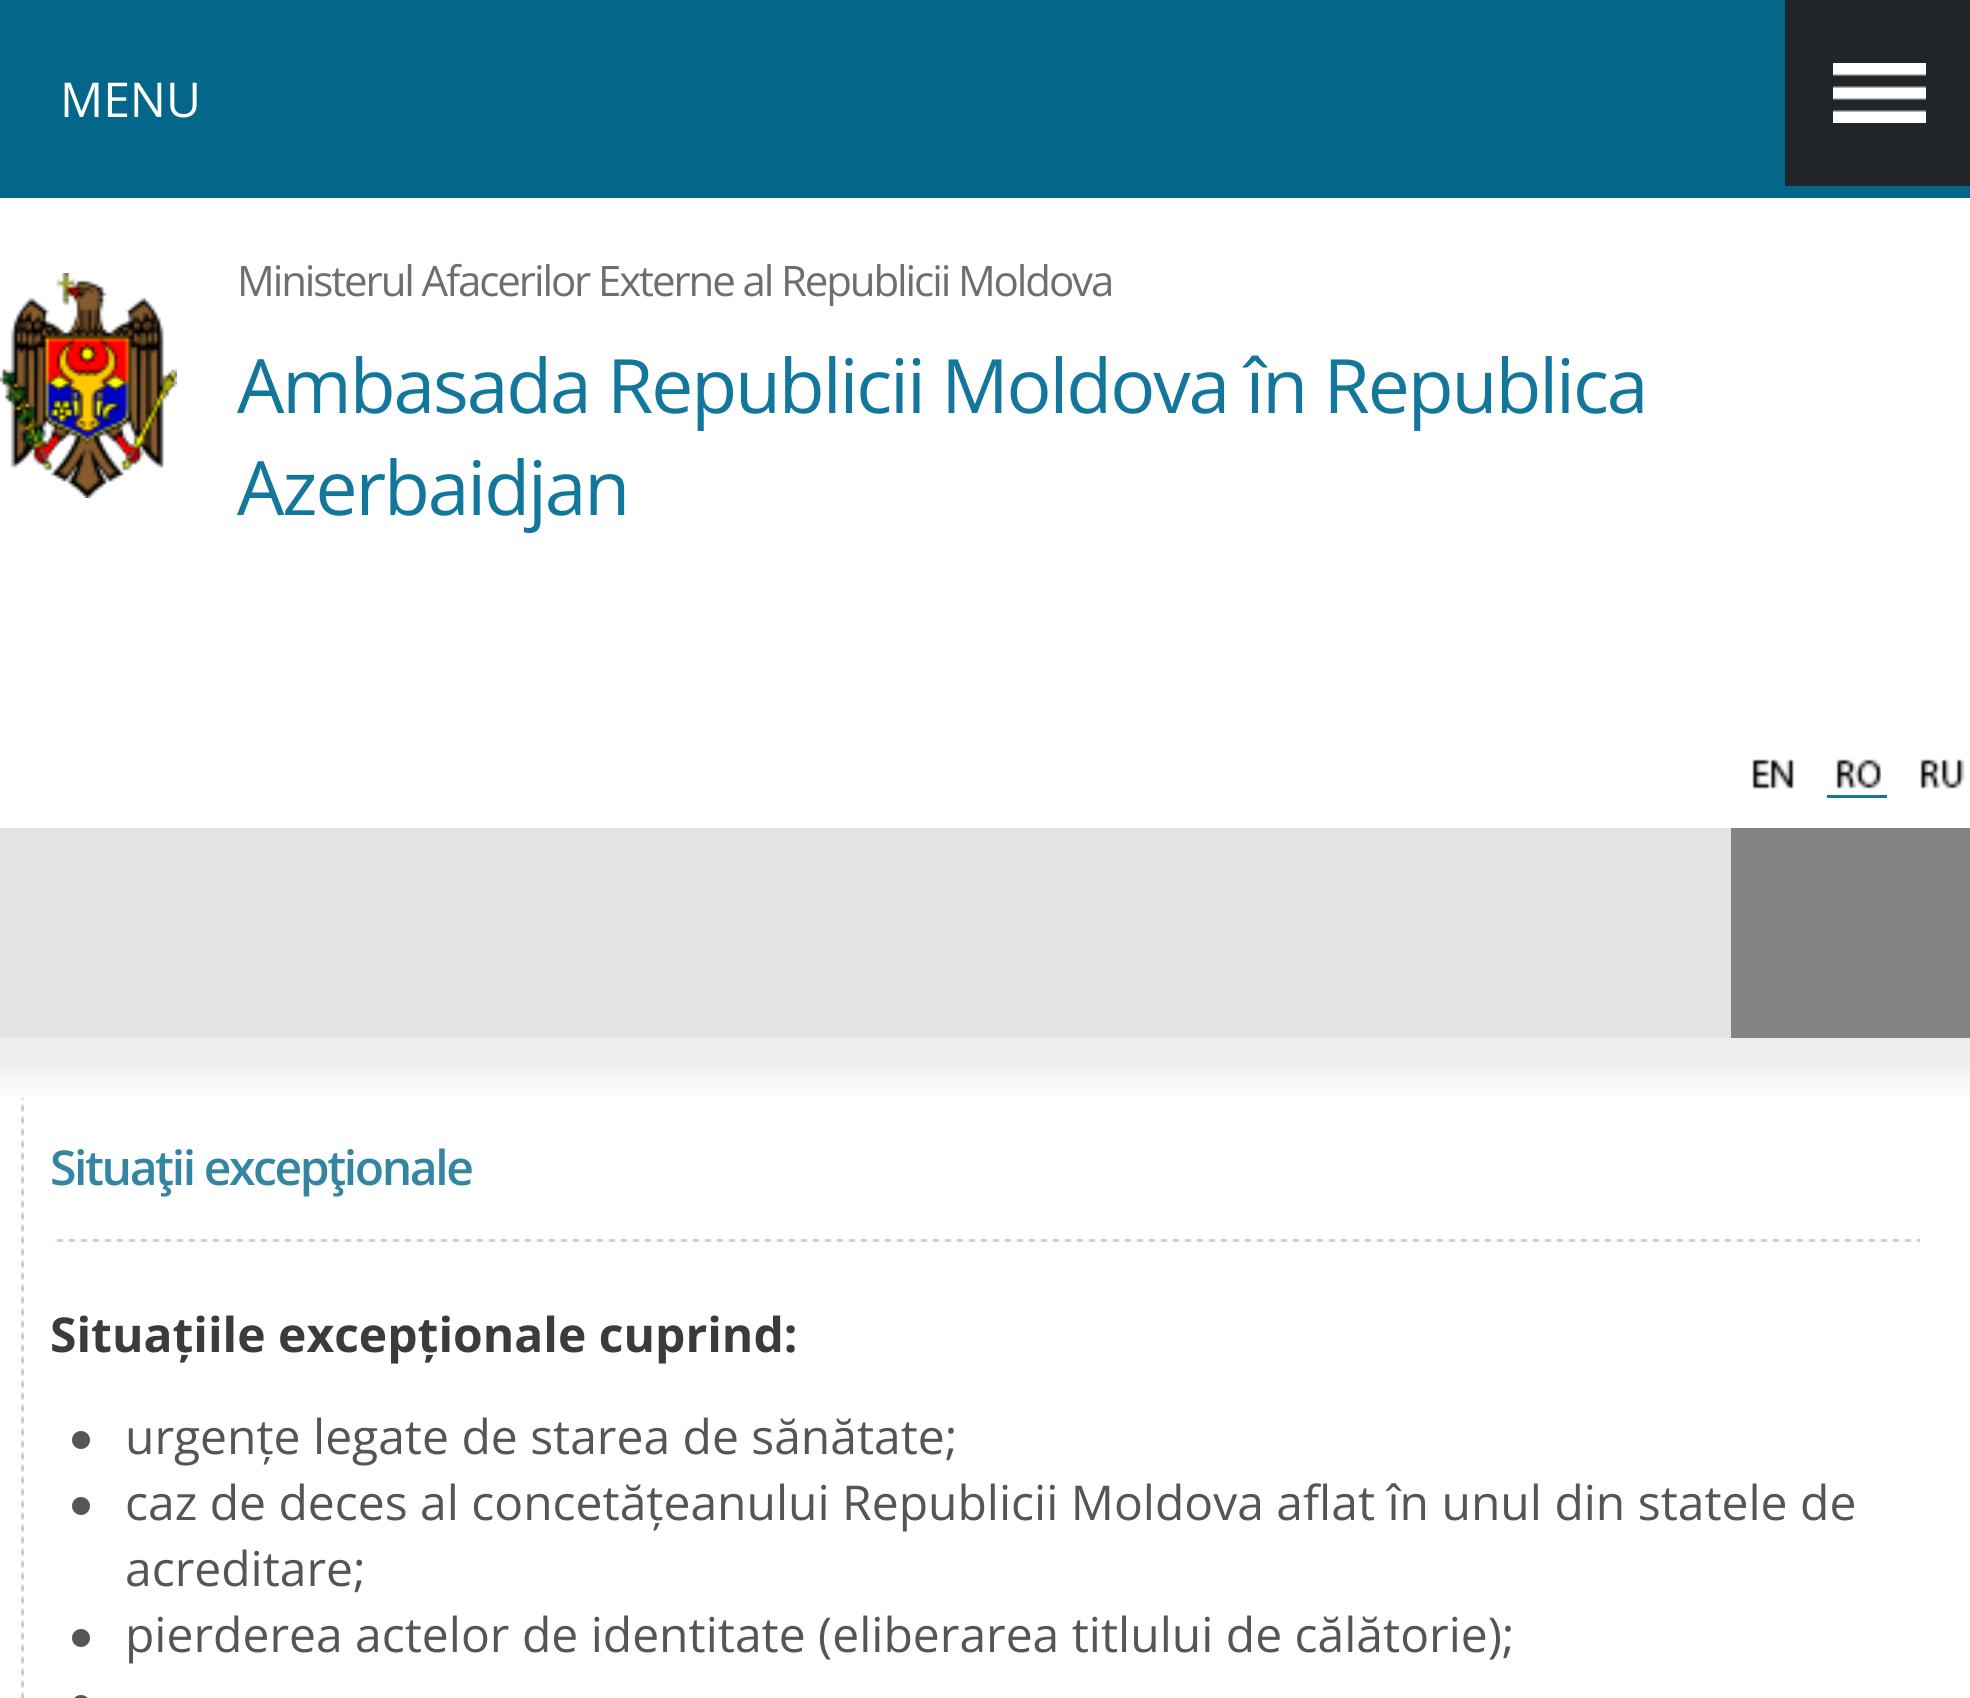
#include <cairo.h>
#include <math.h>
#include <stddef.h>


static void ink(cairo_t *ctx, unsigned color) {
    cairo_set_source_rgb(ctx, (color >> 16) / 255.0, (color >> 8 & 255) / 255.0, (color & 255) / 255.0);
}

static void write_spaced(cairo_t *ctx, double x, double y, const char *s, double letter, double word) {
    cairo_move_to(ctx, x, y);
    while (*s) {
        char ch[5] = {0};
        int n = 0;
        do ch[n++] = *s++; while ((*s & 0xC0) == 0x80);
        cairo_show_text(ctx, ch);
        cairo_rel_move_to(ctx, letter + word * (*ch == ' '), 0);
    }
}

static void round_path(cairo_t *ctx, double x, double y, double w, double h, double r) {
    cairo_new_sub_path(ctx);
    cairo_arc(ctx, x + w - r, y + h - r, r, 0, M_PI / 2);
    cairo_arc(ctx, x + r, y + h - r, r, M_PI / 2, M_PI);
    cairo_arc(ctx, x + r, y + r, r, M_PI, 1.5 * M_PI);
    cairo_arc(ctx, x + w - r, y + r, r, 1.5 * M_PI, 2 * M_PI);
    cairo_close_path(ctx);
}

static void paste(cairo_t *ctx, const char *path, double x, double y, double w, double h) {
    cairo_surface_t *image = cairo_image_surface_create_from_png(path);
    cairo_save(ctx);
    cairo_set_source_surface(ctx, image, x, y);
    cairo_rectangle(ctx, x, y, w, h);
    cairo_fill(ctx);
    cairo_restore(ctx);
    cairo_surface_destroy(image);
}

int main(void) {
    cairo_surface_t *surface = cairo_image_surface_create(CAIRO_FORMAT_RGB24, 1970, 1698);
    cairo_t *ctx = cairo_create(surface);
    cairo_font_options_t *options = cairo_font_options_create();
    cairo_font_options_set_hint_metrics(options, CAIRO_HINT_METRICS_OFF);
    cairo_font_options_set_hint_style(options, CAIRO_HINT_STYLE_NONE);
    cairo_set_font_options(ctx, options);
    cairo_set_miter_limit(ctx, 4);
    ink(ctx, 0xFFFFFF);
    cairo_paint(ctx);
    ink(ctx, 0x046689);
    cairo_rectangle(ctx, 0, 0, 1970, 198);
    cairo_fill(ctx);
    cairo_select_font_face(ctx, "Open Sans", CAIRO_FONT_SLANT_NORMAL, CAIRO_FONT_WEIGHT_NORMAL);
    cairo_set_font_size(ctx, 48);
    ink(ctx, 0xFFFFFF);
    cairo_move_to(ctx, 60, 117);
    cairo_show_text(ctx, "MENU");
    ink(ctx, 0x202529);
    cairo_rectangle(ctx, 1785, 0, 185, 186);
    cairo_fill(ctx);
    paste(ctx, "media/1.png", 1833, 63, 93, 60);
    paste(ctx, "media/2.png", 0, 273, 177, 225);
    cairo_set_font_size(ctx, 42);
    ink(ctx, 0x6E6E6E);
    write_spaced(ctx, 237, 296, "Ministerul Afacerilor Externe al Republicii Moldova", -2.1, 0);
    cairo_set_font_size(ctx, 75);
    ink(ctx, 0x13779C);
    write_spaced(ctx, 237, 413, "Ambasada Republicii Moldova în Republica", -2.1, 0);
    write_spaced(ctx, 237, 515, "Azerbaidjan", -2.1, 0);
    paste(ctx, "media/3.png", 1752, 759, 42, 30);
    ink(ctx, 0x13779B);
    cairo_rectangle(ctx, 1827, 795, 60, 3);
    cairo_fill(ctx);
    paste(ctx, "media/4.png", 1836, 759, 45, 30);
    paste(ctx, "media/5.png", 1920, 759, 45, 30);
    ink(ctx, 0xE3E3E3);
    cairo_rectangle(ctx, 0, 828, 1731, 210);
    cairo_fill(ctx);
    ink(ctx, 0x838383);
    cairo_rectangle(ctx, 1731, 828, 239, 210);
    cairo_fill(ctx);
    paste(ctx, "media/6.png", 0, 1038, 1970, 59);
    paste(ctx, "media/7.png", 21, 1098, 3, 600);
    paste(ctx, "media/8.png", 51, 1239, 1869, 3);
    cairo_select_font_face(ctx, "Open Sans SemiBold", CAIRO_FONT_SLANT_NORMAL, CAIRO_FONT_WEIGHT_NORMAL);
    cairo_set_font_size(ctx, 48);
    ink(ctx, 0x3385A2);
    write_spaced(ctx, 50, 1185, "Situaţii excepţionale", -2.4, 0);
    cairo_select_font_face(ctx, "Open Sans", CAIRO_FONT_SLANT_NORMAL, CAIRO_FONT_WEIGHT_BOLD);
    ink(ctx, 0x3B3B3B);
    cairo_move_to(ctx, 50, 1352);
    cairo_show_text(ctx, "Situațiile excepționale cuprind:");
    ink(ctx, 0x555555);
    cairo_new_path(ctx);
    cairo_arc(ctx, 81, 1440, 9, 0, 2 * M_PI);
    cairo_fill(ctx);
    cairo_select_font_face(ctx, "Open Sans", CAIRO_FONT_SLANT_NORMAL, CAIRO_FONT_WEIGHT_NORMAL);
    cairo_move_to(ctx, 125, 1454);
    cairo_show_text(ctx, "urgențe legate de starea de sănătate;");
    cairo_new_path(ctx);
    cairo_arc(ctx, 81, 1506, 9, 0, 2 * M_PI);
    cairo_fill(ctx);
    cairo_move_to(ctx, 125, 1520);
    cairo_show_text(ctx, "caz de deces al concetățeanului Republicii Moldova aflat în unul din statele de");
    cairo_move_to(ctx, 125, 1586);
    cairo_show_text(ctx, "acreditare;");
    cairo_new_path(ctx);
    cairo_arc(ctx, 81, 1638, 9, 0, 2 * M_PI);
    cairo_fill(ctx);
    cairo_move_to(ctx, 125, 1652);
    cairo_show_text(ctx, "pierderea actelor de identitate (eliberarea titlului de călătorie);");
    round_path(ctx, 72, 1695, 18, 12, 9);
    cairo_fill(ctx);
    cairo_surface_write_to_png(surface, "image.png");
    cairo_font_options_destroy(options);
    cairo_destroy(ctx);
    cairo_surface_destroy(surface);
    return 0;
}
